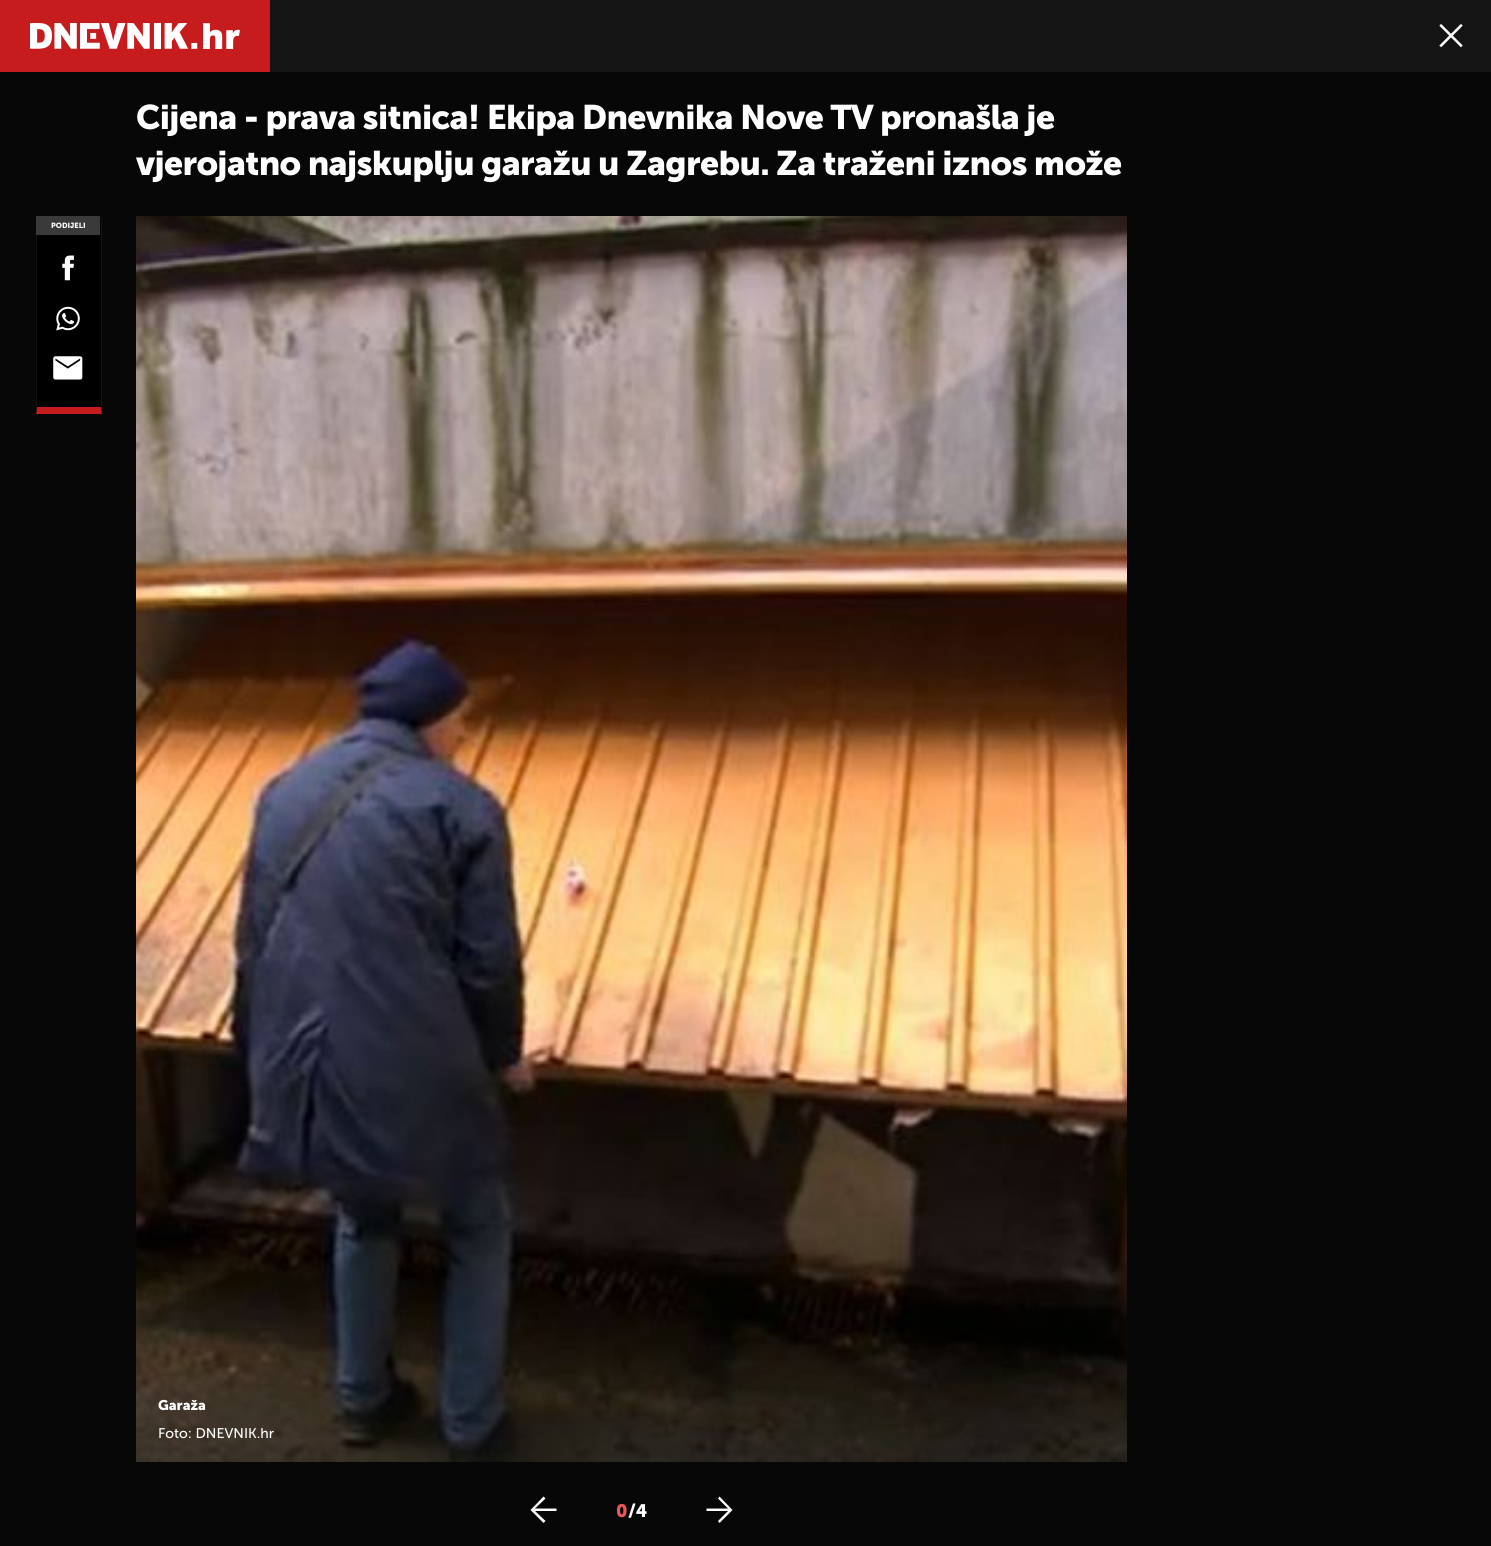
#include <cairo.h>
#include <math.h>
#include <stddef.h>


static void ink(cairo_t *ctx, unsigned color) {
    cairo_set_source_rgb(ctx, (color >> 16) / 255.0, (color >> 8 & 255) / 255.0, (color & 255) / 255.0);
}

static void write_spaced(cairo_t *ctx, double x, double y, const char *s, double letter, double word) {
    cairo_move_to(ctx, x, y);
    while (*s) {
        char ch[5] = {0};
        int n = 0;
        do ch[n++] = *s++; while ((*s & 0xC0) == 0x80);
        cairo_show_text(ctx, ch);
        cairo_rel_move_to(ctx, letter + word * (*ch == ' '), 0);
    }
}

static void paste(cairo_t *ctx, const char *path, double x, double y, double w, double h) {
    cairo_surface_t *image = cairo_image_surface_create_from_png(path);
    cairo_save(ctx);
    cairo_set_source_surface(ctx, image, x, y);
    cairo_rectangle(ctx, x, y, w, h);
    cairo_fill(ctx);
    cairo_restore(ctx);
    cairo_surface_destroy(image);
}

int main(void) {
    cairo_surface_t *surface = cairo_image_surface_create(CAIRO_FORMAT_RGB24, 1491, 1546);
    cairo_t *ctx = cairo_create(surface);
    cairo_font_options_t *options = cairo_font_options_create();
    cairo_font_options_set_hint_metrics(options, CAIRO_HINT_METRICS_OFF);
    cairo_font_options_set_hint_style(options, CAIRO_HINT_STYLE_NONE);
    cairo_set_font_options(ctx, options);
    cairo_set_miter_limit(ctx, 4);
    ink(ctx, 0x070707);
    cairo_paint(ctx);
    ink(ctx, 0x141414);
    cairo_rectangle(ctx, 270, 0, 1221, 72);
    cairo_fill(ctx);
    ink(ctx, 0xC71C1D);
    cairo_rectangle(ctx, 0, 0, 270, 72);
    cairo_fill(ctx);
    paste(ctx, "media/1.png", 30, 23, 210, 26);
    paste(ctx, "media/2.png", 1439, 24, 24, 24);
    cairo_select_font_face(ctx, "Museo Sans", CAIRO_FONT_SLANT_NORMAL, CAIRO_FONT_WEIGHT_NORMAL);
    cairo_set_font_size(ctx, 34);
    ink(ctx, 0xFFFFFF);
    write_spaced(ctx, 136, 129, "Cijena - prava sitnica! Ekipa Dnevnika Nove TV pronašla je", -0.68, 0);
    write_spaced(ctx, 136, 175, "vjerojatno najskuplju garažu u Zagrebu. Za traženi iznos može", -0.68, 0);
    ink(ctx, 0x000000);
    cairo_rectangle(ctx, 37, 219, 64, 188);
    cairo_fill(ctx);
    ink(ctx, 0x141414);
    cairo_rectangle(ctx, 100, 218, 2, 1);
    cairo_fill(ctx);
    cairo_new_path(ctx);
    cairo_move_to(ctx, 102, 218);
    cairo_line_to(ctx, 102, 414);
    cairo_line_to(ctx, 101, 407);
    cairo_line_to(ctx, 101, 219);
    cairo_close_path(ctx);
    cairo_fill(ctx);
    ink(ctx, 0xC71C1D);
    cairo_new_path(ctx);
    cairo_move_to(ctx, 102, 414);
    cairo_line_to(ctx, 36, 414);
    cairo_line_to(ctx, 37, 407);
    cairo_line_to(ctx, 101, 407);
    cairo_close_path(ctx);
    cairo_fill(ctx);
    ink(ctx, 0x141414);
    cairo_new_path(ctx);
    cairo_move_to(ctx, 36, 414);
    cairo_line_to(ctx, 36, 218);
    cairo_line_to(ctx, 37, 219);
    cairo_line_to(ctx, 37, 407);
    cairo_close_path(ctx);
    cairo_fill(ctx);
    ink(ctx, 0x3A3A3A);
    cairo_rectangle(ctx, 36, 216, 64, 19);
    cairo_fill(ctx);
    cairo_set_font_size(ctx, 7.5);
    ink(ctx, 0xFFFFFF);
    cairo_move_to(ctx, 51, 228);
    cairo_show_text(ctx, "PODIJELI");
    paste(ctx, "media/3.png", 62, 255, 12, 26);
    paste(ctx, "media/4.png", 56, 306, 24, 25);
    paste(ctx, "media/5.png", 53, 356, 30, 24);
    paste(ctx, "media/6.png", 136, 216, 991, 1246);
    cairo_set_font_size(ctx, 14);
    cairo_move_to(ctx, 158, 1410);
    cairo_show_text(ctx, "Garaža");
    cairo_select_font_face(ctx, "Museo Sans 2", CAIRO_FONT_SLANT_NORMAL, CAIRO_FONT_WEIGHT_NORMAL);
    cairo_move_to(ctx, 158, 1438);
    cairo_show_text(ctx, "Foto: DNEVNIK.hr");
    cairo_new_path(ctx);
    cairo_move_to(ctx, 543.5, 1523);
    cairo_line_to(ctx, 545.5, 1521);
    cairo_line_to(ctx, 535, 1511);
    cairo_line_to(ctx, 556.5, 1511);
    cairo_line_to(ctx, 556.5, 1508.5);
    cairo_line_to(ctx, 535, 1508.5);
    cairo_line_to(ctx, 545.5, 1498.5);
    cairo_line_to(ctx, 543.5, 1496.5);
    cairo_line_to(ctx, 530.5, 1510);
    cairo_close_path(ctx);
    cairo_fill(ctx);
    cairo_select_font_face(ctx, "Museo Sans", CAIRO_FONT_SLANT_NORMAL, CAIRO_FONT_WEIGHT_NORMAL);
    cairo_set_font_size(ctx, 18);
    ink(ctx, 0xE95858);
    cairo_move_to(ctx, 616, 1517);
    cairo_show_text(ctx, "0");
    ink(ctx, 0xFFFFFF);
    cairo_move_to(ctx, 628, 1517);
    cairo_show_text(ctx, "/4");
    cairo_new_path(ctx);
    cairo_move_to(ctx, 719.5, 1523);
    cairo_line_to(ctx, 718, 1521);
    cairo_line_to(ctx, 728, 1511);
    cairo_line_to(ctx, 706.5, 1511);
    cairo_line_to(ctx, 706.5, 1508.5);
    cairo_line_to(ctx, 728, 1508.5);
    cairo_line_to(ctx, 718, 1498.5);
    cairo_line_to(ctx, 719.5, 1496.5);
    cairo_line_to(ctx, 732.5, 1510);
    cairo_close_path(ctx);
    cairo_fill(ctx);
    cairo_surface_write_to_png(surface, "image.png");
    cairo_font_options_destroy(options);
    cairo_destroy(ctx);
    cairo_surface_destroy(surface);
    return 0;
}
